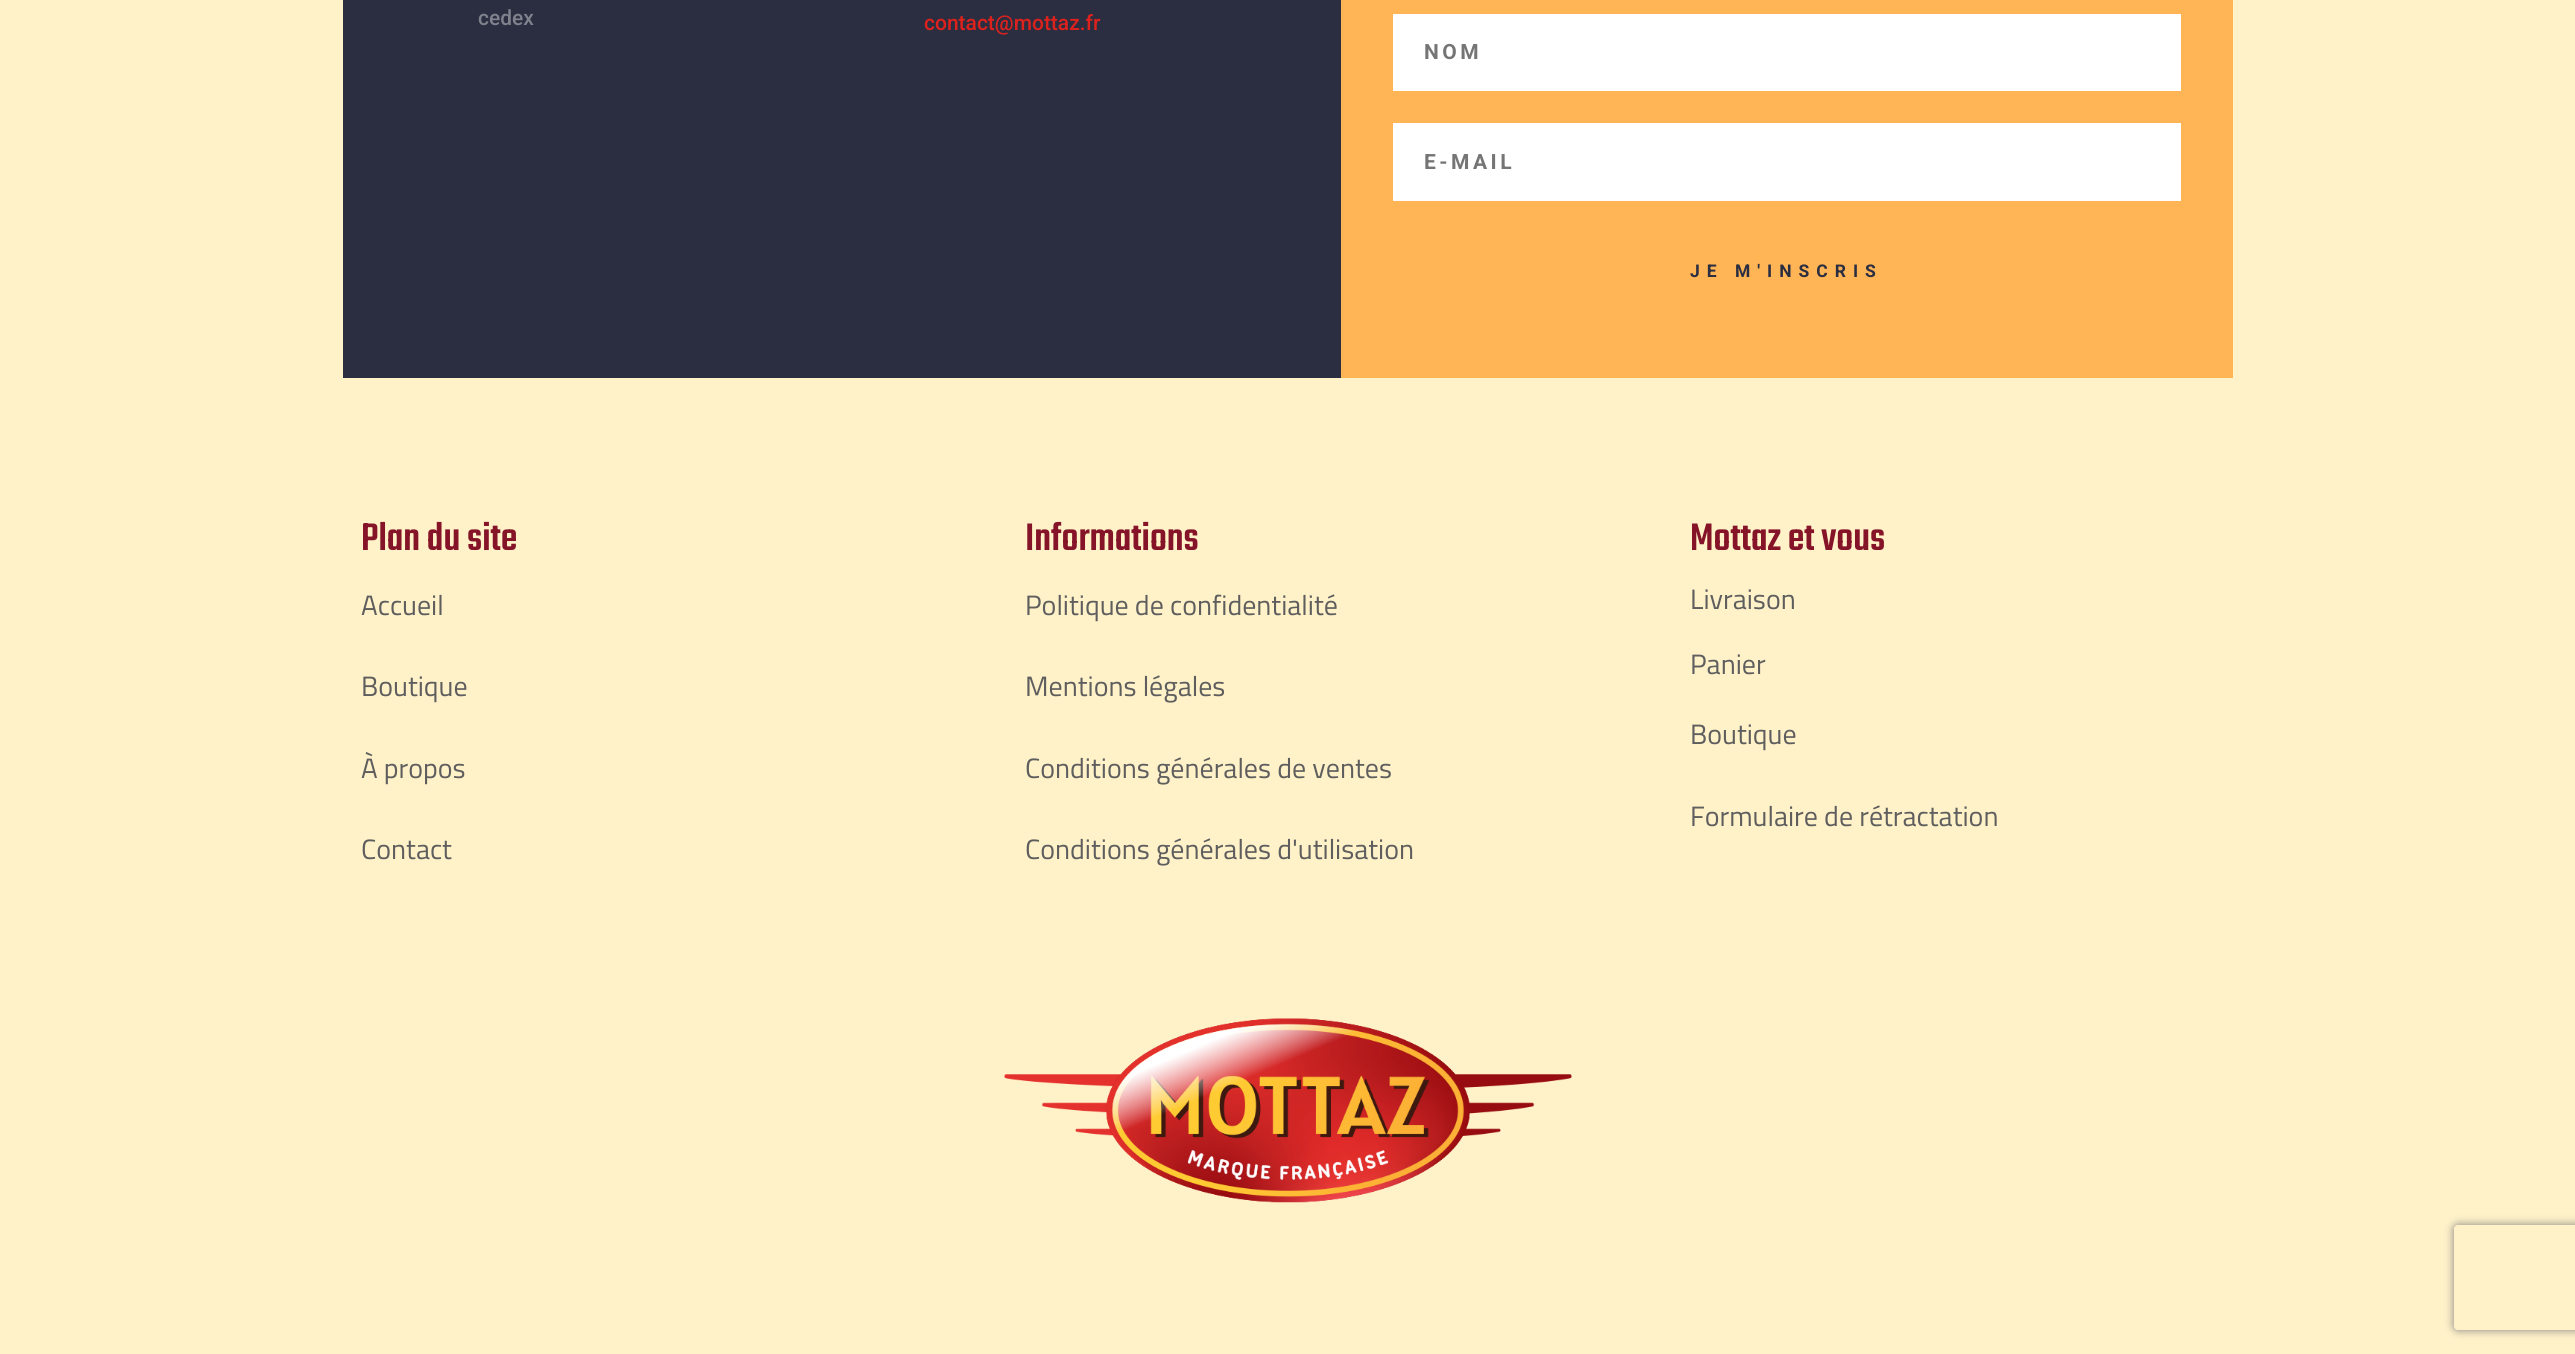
#include <cairo.h>
#include <math.h>
#include <stddef.h>

typedef struct { double x, y; const char *s; } line_t;

static void ink(cairo_t *ctx, unsigned color) {
    cairo_set_source_rgb(ctx, (color >> 16) / 255.0, (color >> 8 & 255) / 255.0, (color & 255) / 255.0);
}

static void write_spaced(cairo_t *ctx, double x, double y, const char *s, double letter, double word) {
    cairo_move_to(ctx, x, y);
    while (*s) {
        char ch[5] = {0};
        int n = 0;
        do ch[n++] = *s++; while ((*s & 0xC0) == 0x80);
        cairo_show_text(ctx, ch);
        cairo_rel_move_to(ctx, letter + word * (*ch == ' '), 0);
    }
}

static void round_path(cairo_t *ctx, double x, double y, double w, double h, double r) {
    cairo_new_sub_path(ctx);
    cairo_arc(ctx, x + w - r, y + h - r, r, 0, M_PI / 2);
    cairo_arc(ctx, x + r, y + h - r, r, M_PI / 2, M_PI);
    cairo_arc(ctx, x + r, y + r, r, M_PI, 1.5 * M_PI);
    cairo_arc(ctx, x + w - r, y + r, r, 1.5 * M_PI, 2 * M_PI);
    cairo_close_path(ctx);
}

static void blur_box(cairo_t *ctx, double x, double y, double w, double h, double r, double blur, double alpha) {
    cairo_push_group_with_content(ctx, CAIRO_CONTENT_ALPHA);
    cairo_set_operator(ctx, CAIRO_OPERATOR_SOURCE);
    for (int i = 15; i >= -15 && fmin(w, h) + blur * i / 3 > 0; i -= 2) {
        double e = blur * i / 6;
        cairo_set_source_rgba(ctx, 0, 0, 0, alpha * erfc((i - 1) / 8.5) / 2);
        round_path(ctx, x - e, y - e, w + 2 * e, h + 2 * e, fmax(0, fmin(r + e + blur * .6, fmin(w, h) / 2 + e)));
        cairo_fill(ctx);
    }
    cairo_pattern_t *soft = cairo_pop_group(ctx);
    cairo_mask(ctx, soft);
    cairo_pattern_destroy(soft);
}

static void paste(cairo_t *ctx, const char *path, double x, double y, double w, double h) {
    cairo_surface_t *image = cairo_image_surface_create_from_png(path);
    cairo_save(ctx);
    cairo_set_source_surface(ctx, image, x, y);
    cairo_rectangle(ctx, x, y, w, h);
    cairo_fill(ctx);
    cairo_restore(ctx);
    cairo_surface_destroy(image);
}

int main(void) {
    cairo_surface_t *surface = cairo_image_surface_create(CAIRO_FORMAT_RGB24, 2575, 1354);
    cairo_t *ctx = cairo_create(surface);
    cairo_font_options_t *options = cairo_font_options_create();
    cairo_font_options_set_hint_metrics(options, CAIRO_HINT_METRICS_OFF);
    cairo_font_options_set_hint_style(options, CAIRO_HINT_STYLE_NONE);
    cairo_set_font_options(ctx, options);
    cairo_set_miter_limit(ctx, 4);
    ink(ctx, 0xFFF2C9);
    cairo_paint(ctx);
    ink(ctx, 0x2A2E40);
    cairo_rectangle(ctx, 343, 0, 998, 378);
    cairo_fill(ctx);
    cairo_select_font_face(ctx, "Roboto Medium", CAIRO_FONT_SLANT_NORMAL, CAIRO_FONT_WEIGHT_NORMAL);
    cairo_set_font_size(ctx, 21);
    ink(ctx, 0x7F828C);
    cairo_move_to(ctx, 478, 25);
    cairo_show_text(ctx, "cedex");
    ink(ctx, 0xDD211D);
    cairo_move_to(ctx, 924, 30);
    cairo_show_text(ctx, "contact@mottaz.fr");
    ink(ctx, 0xFFB456);
    cairo_rectangle(ctx, 1341, 0, 892, 378);
    cairo_fill(ctx);
    ink(ctx, 0xFFFFFF);
    cairo_rectangle(ctx, 1393, 14, 788, 77);
    cairo_fill(ctx);
    cairo_select_font_face(ctx, "Roboto", CAIRO_FONT_SLANT_NORMAL, CAIRO_FONT_WEIGHT_BOLD);
    ink(ctx, 0x757575);
    write_spaced(ctx, 1424, 59, "NOM", 3.5, 0);
    ink(ctx, 0xFFFFFF);
    cairo_rectangle(ctx, 1393, 123, 788, 78);
    cairo_fill(ctx);
    ink(ctx, 0x757575);
    write_spaced(ctx, 1424, 169, "E-MAIL", 3.5, 0);
    cairo_set_font_size(ctx, 17.5);
    ink(ctx, 0x2A2E40);
    write_spaced(ctx, 1690, 277, "JE M'INSCRIS", 7, 0);
    cairo_select_font_face(ctx, "Teko Light", CAIRO_FONT_SLANT_NORMAL, CAIRO_FONT_WEIGHT_NORMAL);
    cairo_set_font_size(ctx, 42);
    ink(ctx, 0x851429);
    cairo_move_to(ctx, 361, 550);
    cairo_show_text(ctx, "Plan du site");
    cairo_select_font_face(ctx, "Titillium Web", CAIRO_FONT_SLANT_NORMAL, CAIRO_FONT_WEIGHT_NORMAL);
    cairo_set_font_size(ctx, 28);
    ink(ctx, 0x5F5E5E);
    {
        static const line_t items[] = {
            {361, 615, "Accueil"},
            {361, 696, "Boutique"},
            {361, 778, "À propos"},
            {361, 859, "Contact"},
        };
        for (size_t i = 0; i < sizeof items / sizeof *items; i++) {
            cairo_move_to(ctx, items[i].x, items[i].y);
            cairo_show_text(ctx, items[i].s);
        }
    }
    cairo_select_font_face(ctx, "Teko Light", CAIRO_FONT_SLANT_NORMAL, CAIRO_FONT_WEIGHT_NORMAL);
    cairo_set_font_size(ctx, 42);
    ink(ctx, 0x851429);
    cairo_move_to(ctx, 1025, 550);
    cairo_show_text(ctx, "Informations");
    cairo_select_font_face(ctx, "Titillium Web", CAIRO_FONT_SLANT_NORMAL, CAIRO_FONT_WEIGHT_NORMAL);
    cairo_set_font_size(ctx, 28);
    ink(ctx, 0x5F5E5E);
    {
        static const line_t items[] = {
            {1025, 615, "Politique de confidentialité"},
            {1025, 696, "Mentions légales"},
            {1025, 778, "Conditions générales de ventes"},
            {1025, 859, "Conditions générales d'utilisation"},
        };
        for (size_t i = 0; i < sizeof items / sizeof *items; i++) {
            cairo_move_to(ctx, items[i].x, items[i].y);
            cairo_show_text(ctx, items[i].s);
        }
    }
    cairo_select_font_face(ctx, "Teko Light", CAIRO_FONT_SLANT_NORMAL, CAIRO_FONT_WEIGHT_NORMAL);
    cairo_set_font_size(ctx, 42);
    ink(ctx, 0x851429);
    cairo_move_to(ctx, 1690, 550);
    cairo_show_text(ctx, "Mottaz et vous");
    cairo_select_font_face(ctx, "Titillium Web", CAIRO_FONT_SLANT_NORMAL, CAIRO_FONT_WEIGHT_NORMAL);
    cairo_set_font_size(ctx, 28);
    ink(ctx, 0x5F5E5E);
    {
        static const line_t items[] = {
            {1690, 609, "Livraison"},
            {1690, 674, "Panier"},
            {1690, 744, "Boutique"},
            {1690, 826, "Formulaire de rétractation"},
        };
        for (size_t i = 0; i < sizeof items / sizeof *items; i++) {
            cairo_move_to(ctx, items[i].x, items[i].y);
            cairo_show_text(ctx, items[i].s);
        }
    }
    paste(ctx, "media/1.png", 1004, 1018, 568, 185);
    cairo_save(ctx);
    cairo_set_fill_rule(ctx, CAIRO_FILL_RULE_EVEN_ODD);
    cairo_new_path(ctx);
    cairo_move_to(ctx, 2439, 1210);
    cairo_line_to(ctx, 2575, 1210);
    cairo_line_to(ctx, 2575, 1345);
    cairo_line_to(ctx, 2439, 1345);
    cairo_close_path(ctx);
    cairo_move_to(ctx, 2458, 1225);
    cairo_line_to(ctx, 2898, 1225);
    cairo_curve_to(ctx, 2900, 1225, 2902, 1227, 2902, 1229);
    cairo_line_to(ctx, 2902, 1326);
    cairo_curve_to(ctx, 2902, 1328, 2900, 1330, 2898, 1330);
    cairo_line_to(ctx, 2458, 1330);
    cairo_curve_to(ctx, 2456, 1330, 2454, 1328, 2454, 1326);
    cairo_line_to(ctx, 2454, 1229);
    cairo_curve_to(ctx, 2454, 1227, 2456, 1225, 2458, 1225);
    cairo_close_path(ctx);
    cairo_clip(ctx);
    ink(ctx, 0x808080);
    blur_box(ctx, 2454, 1225, 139, 105, 4, 4.5, 1);
    cairo_restore(ctx);
    cairo_surface_write_to_png(surface, "image.png");
    cairo_font_options_destroy(options);
    cairo_destroy(ctx);
    cairo_surface_destroy(surface);
    return 0;
}
